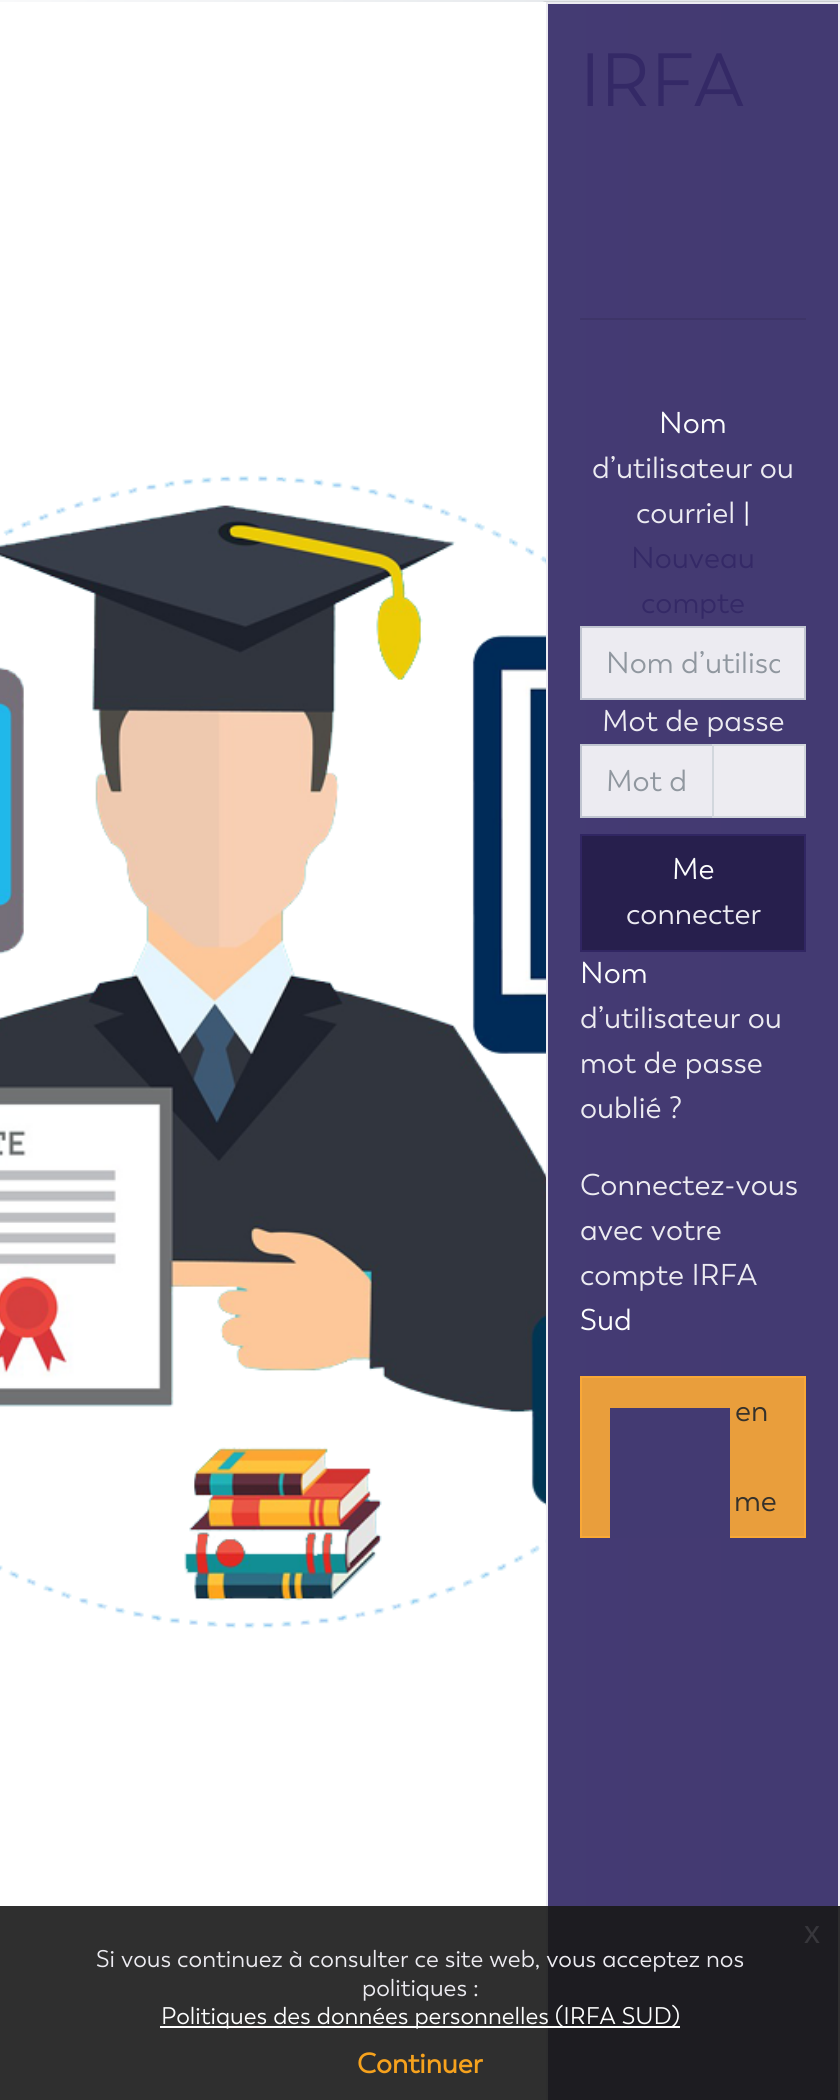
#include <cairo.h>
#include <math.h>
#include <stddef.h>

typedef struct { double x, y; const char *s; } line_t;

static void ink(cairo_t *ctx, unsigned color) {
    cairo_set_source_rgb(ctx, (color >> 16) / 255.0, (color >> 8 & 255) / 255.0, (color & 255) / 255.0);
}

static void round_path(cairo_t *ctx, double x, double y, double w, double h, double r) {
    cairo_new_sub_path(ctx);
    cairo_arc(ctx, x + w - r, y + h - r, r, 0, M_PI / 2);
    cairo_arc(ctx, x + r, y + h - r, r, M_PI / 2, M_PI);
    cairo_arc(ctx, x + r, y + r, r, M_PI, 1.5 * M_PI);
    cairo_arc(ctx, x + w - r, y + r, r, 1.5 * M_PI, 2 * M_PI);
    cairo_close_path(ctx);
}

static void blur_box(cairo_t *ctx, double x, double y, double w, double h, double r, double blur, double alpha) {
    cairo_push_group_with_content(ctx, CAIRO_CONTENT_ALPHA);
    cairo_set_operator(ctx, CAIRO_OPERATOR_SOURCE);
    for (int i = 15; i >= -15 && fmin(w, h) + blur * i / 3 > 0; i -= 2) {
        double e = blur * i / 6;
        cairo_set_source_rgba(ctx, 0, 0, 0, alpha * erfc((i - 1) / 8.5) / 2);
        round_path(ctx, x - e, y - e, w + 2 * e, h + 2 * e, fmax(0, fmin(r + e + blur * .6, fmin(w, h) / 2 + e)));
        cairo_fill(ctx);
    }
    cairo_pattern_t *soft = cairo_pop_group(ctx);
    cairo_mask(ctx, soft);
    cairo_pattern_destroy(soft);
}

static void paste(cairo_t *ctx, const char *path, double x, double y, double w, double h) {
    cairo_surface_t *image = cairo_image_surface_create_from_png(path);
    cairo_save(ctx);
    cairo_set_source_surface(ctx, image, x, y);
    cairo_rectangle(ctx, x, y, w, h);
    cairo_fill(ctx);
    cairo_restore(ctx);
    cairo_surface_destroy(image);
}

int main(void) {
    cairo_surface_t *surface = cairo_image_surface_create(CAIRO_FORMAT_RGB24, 840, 2100);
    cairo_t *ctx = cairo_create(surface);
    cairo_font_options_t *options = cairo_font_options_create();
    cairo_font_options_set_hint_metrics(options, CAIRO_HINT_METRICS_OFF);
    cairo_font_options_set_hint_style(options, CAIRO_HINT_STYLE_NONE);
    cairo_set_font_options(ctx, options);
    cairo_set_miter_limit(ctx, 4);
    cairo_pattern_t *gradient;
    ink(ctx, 0xFFFFFF);
    cairo_paint(ctx);
    gradient = cairo_pattern_create_linear(0, 1083, 840, 1083);
    cairo_pattern_add_color_stop_rgba(gradient, 0, 0.973, 0.976, 0.98, 1);
    cairo_pattern_add_color_stop_rgba(gradient, 1, 0.871, 0.886, 0.902, 1);
    cairo_set_source(ctx, gradient);
    cairo_pattern_destroy(gradient);
    cairo_rectangle(ctx, 0, 0, 840, 2);
    cairo_fill(ctx);
    gradient = cairo_pattern_create_linear(0, 1083, 840, 1083);
    cairo_pattern_add_color_stop_rgba(gradient, 0, 0.275, 0.235, 0.455, 1);
    cairo_pattern_add_color_stop_rgba(gradient, 1, 0.263, 0.227, 0.447, 1);
    cairo_set_source(ctx, gradient);
    cairo_pattern_destroy(gradient);
    cairo_rectangle(ctx, 548, 4, 290, 2096);
    cairo_fill(ctx);
    cairo_save(ctx);
    cairo_rectangle(ctx, 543, 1, 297, 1);
    cairo_clip(ctx);
    ink(ctx, 0x000000);
    blur_box(ctx, 544, 2, 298, 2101, 0, 1, 0.27);
    cairo_restore(ctx);
    paste(ctx, "media/1.png", 0, 2, 546, 2098);
    cairo_rectangle(ctx, 547, 3, 292, 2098);
    ink(ctx, 0xECEBF1);
    cairo_stroke(ctx);
    cairo_select_font_face(ctx, "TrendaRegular", CAIRO_FONT_SLANT_NORMAL, CAIRO_FONT_WEIGHT_NORMAL);
    cairo_set_font_size(ctx, 75);
    ink(ctx, 0x342966);
    cairo_move_to(ctx, 580, 106);
    cairo_show_text(ctx, "IRFA");
    ink(ctx, 0x3E3568);
    cairo_rectangle(ctx, 580, 318, 226, 2);
    cairo_fill(ctx);
    cairo_set_font_size(ctx, 30);
    ink(ctx, 0xFCFDFD);
    cairo_move_to(ctx, 659, 433);
    cairo_show_text(ctx, "Nom");
    ink(ctx, 0xECEBF1);
    cairo_move_to(ctx, 592, 478);
    cairo_show_text(ctx, "d’utilisateur ou");
    cairo_move_to(ctx, 636, 523);
    cairo_show_text(ctx, "courriel");
    ink(ctx, 0xFCFDFD);
    cairo_move_to(ctx, 743, 523);
    cairo_show_text(ctx, "|");
    ink(ctx, 0x342966);
    cairo_move_to(ctx, 631, 568);
    cairo_show_text(ctx, "Nouveau");
    cairo_move_to(ctx, 641, 613);
    cairo_show_text(ctx, "compte");
    ink(ctx, 0xECEBF1);
    cairo_rectangle(ctx, 581, 627, 224, 72);
    cairo_fill_preserve(ctx);
    ink(ctx, 0xC0C5D0);
    cairo_stroke(ctx);
    cairo_save(ctx);
    cairo_rectangle(ctx, 606, 644, 174, 36);
    cairo_clip(ctx);
    ink(ctx, 0x90979F);
    cairo_move_to(ctx, 606, 673);
    cairo_show_text(ctx, "Nom d’utilisa");
    cairo_restore(ctx);
    ink(ctx, 0xECEBF1);
    cairo_move_to(ctx, 602, 731);
    cairo_show_text(ctx, "Mot de passe");
    cairo_rectangle(ctx, 581, 745, 132, 72);
    cairo_fill_preserve(ctx);
    ink(ctx, 0xC0C5D0);
    cairo_stroke(ctx);
    ink(ctx, 0x90979F);
    cairo_move_to(ctx, 606, 791);
    cairo_show_text(ctx, "Mot d");
    cairo_set_source_rgba(ctx, 1, 1, 1, 0.9);
    cairo_rectangle(ctx, 712, 744, 94, 74);
    cairo_fill(ctx);
    cairo_rectangle(ctx, 713, 745, 92, 72);
    cairo_set_source_rgba(ctx, 0.808, 0.831, 0.855, 0.9);
    cairo_stroke(ctx);
    ink(ctx, 0x271F4D);
    cairo_rectangle(ctx, 581, 835, 224, 116);
    cairo_fill_preserve(ctx);
    ink(ctx, 0x312663);
    cairo_stroke(ctx);
    ink(ctx, 0xFCFDFD);
    cairo_move_to(ctx, 672, 879);
    cairo_show_text(ctx, "Me");
    ink(ctx, 0xECEBF1);
    cairo_move_to(ctx, 626, 924);
    cairo_show_text(ctx, "connecter");
    ink(ctx, 0xFCFDFD);
    cairo_move_to(ctx, 580, 983);
    cairo_show_text(ctx, "Nom");
    ink(ctx, 0xECEBF1);
    {
        static const line_t items[] = {
            {580, 1028, "d’utilisateur ou"},
            {580, 1073, "mot de passe"},
            {580, 1118, "oublié ?"},
            {580, 1195, "Connectez-vous"},
            {580, 1240, "avec votre"},
            {580, 1285, "compte IRFA"},
        };
        for (size_t i = 0; i < sizeof items / sizeof *items; i++) {
            cairo_move_to(ctx, items[i].x, items[i].y);
            cairo_show_text(ctx, items[i].s);
        }
    }
    ink(ctx, 0xFCFDFD);
    cairo_move_to(ctx, 580, 1330);
    cairo_show_text(ctx, "Sud");
    ink(ctx, 0xE99E3C);
    cairo_rectangle(ctx, 581, 1377, 224, 160);
    cairo_fill_preserve(ctx);
    ink(ctx, 0xF9A837);
    cairo_stroke(ctx);
    ink(ctx, 0x35312B);
    cairo_move_to(ctx, 735, 1421);
    cairo_show_text(ctx, "en");
    cairo_move_to(ctx, 734, 1511);
    cairo_show_text(ctx, "me");
    ink(ctx, 0x433A72);
    cairo_rectangle(ctx, 610, 1408, 120, 130);
    cairo_fill(ctx);
    cairo_set_source_rgba(ctx, 0.098, 0.098, 0.098, 0.9);
    cairo_rectangle(ctx, 0, 1906, 840, 194);
    cairo_fill(ctx);
    cairo_select_font_face(ctx, "Liberation Sans", CAIRO_FONT_SLANT_NORMAL, CAIRO_FONT_WEIGHT_NORMAL);
    cairo_set_font_size(ctx, 32);
    ink(ctx, 0x38373C);
    cairo_move_to(ctx, 804, 1943);
    cairo_show_text(ctx, "x");
    cairo_select_font_face(ctx, "TrendaRegular", CAIRO_FONT_SLANT_NORMAL, CAIRO_FONT_WEIGHT_NORMAL);
    cairo_set_font_size(ctx, 24);
    ink(ctx, 0xECEBF1);
    cairo_move_to(ctx, 96, 1967);
    cairo_show_text(ctx, "Si vous continuez à consulter ce site web, vous acceptez nos");
    cairo_move_to(ctx, 362, 1996);
    cairo_show_text(ctx, "politiques :");
    ink(ctx, 0xFFFFFF);
    cairo_rectangle(ctx, 160, 2026, 520, 2);
    cairo_fill(ctx);
    ink(ctx, 0xFCFDFD);
    cairo_move_to(ctx, 161, 2024);
    cairo_show_text(ctx, "Politiques des données personnelles (IRFA SUD)");
    cairo_select_font_face(ctx, "TrendaRegular", CAIRO_FONT_SLANT_NORMAL, CAIRO_FONT_WEIGHT_BOLD);
    cairo_set_font_size(ctx, 28);
    ink(ctx, 0xF6A21D);
    cairo_move_to(ctx, 357, 2073);
    cairo_show_text(ctx, "Continuer");
    cairo_surface_write_to_png(surface, "image.png");
    cairo_font_options_destroy(options);
    cairo_destroy(ctx);
    cairo_surface_destroy(surface);
    return 0;
}
